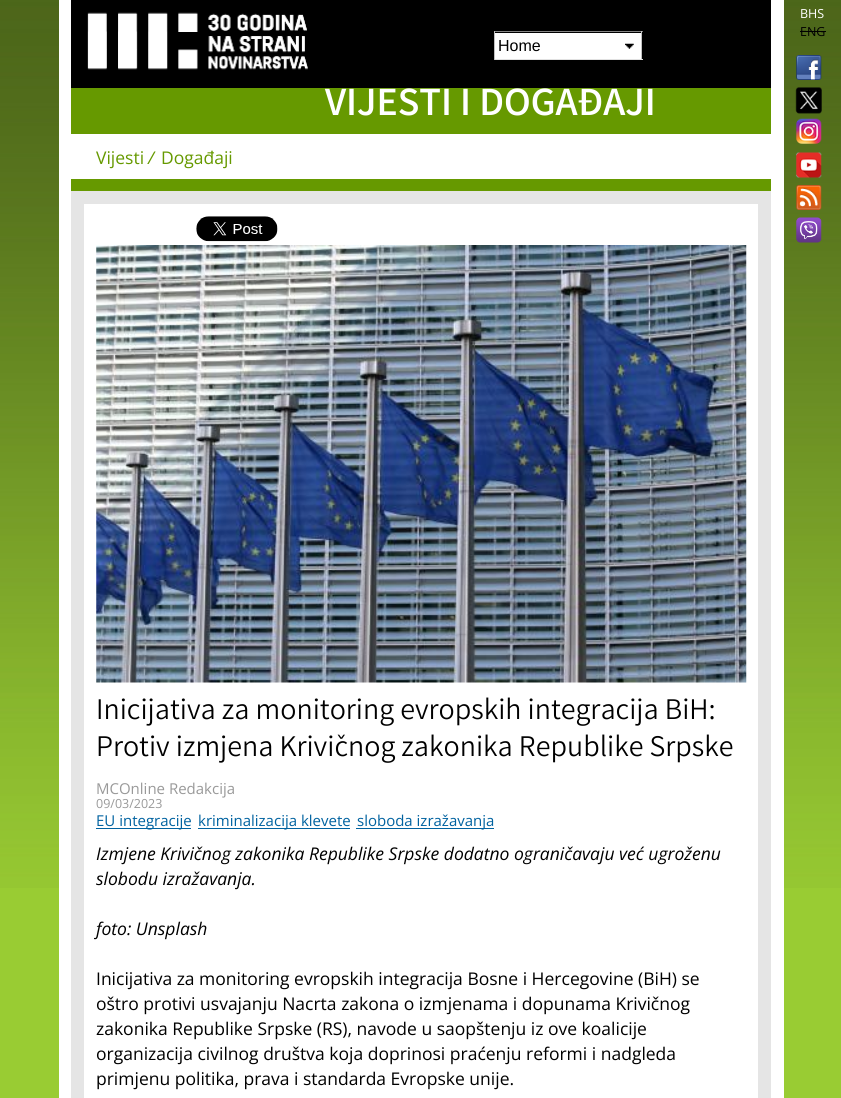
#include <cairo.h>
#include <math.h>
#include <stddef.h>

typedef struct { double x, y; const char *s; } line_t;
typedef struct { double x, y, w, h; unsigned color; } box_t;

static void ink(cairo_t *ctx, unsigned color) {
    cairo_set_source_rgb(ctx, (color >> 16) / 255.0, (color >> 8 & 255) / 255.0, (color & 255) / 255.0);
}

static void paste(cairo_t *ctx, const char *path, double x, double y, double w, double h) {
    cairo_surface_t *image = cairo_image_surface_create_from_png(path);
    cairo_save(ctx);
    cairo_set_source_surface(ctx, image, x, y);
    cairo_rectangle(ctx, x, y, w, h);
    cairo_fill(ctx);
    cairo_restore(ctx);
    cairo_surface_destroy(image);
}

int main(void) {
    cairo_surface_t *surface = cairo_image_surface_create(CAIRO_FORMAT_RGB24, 841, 1098);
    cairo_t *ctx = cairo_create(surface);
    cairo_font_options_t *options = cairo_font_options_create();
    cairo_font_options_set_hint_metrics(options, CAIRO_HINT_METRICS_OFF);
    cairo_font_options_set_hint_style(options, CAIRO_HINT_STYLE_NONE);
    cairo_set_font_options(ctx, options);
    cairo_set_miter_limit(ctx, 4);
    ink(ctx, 0x99CC33);
    cairo_paint(ctx);
    paste(ctx, "media/1.png", 0, 0, 841, 888);
    ink(ctx, 0xFFFFFF);
    cairo_rectangle(ctx, 59, 0, 725, 1098);
    cairo_fill(ctx);
    ink(ctx, 0x000000);
    cairo_rectangle(ctx, 71, 0, 700, 88);
    cairo_fill(ctx);
    paste(ctx, "media/2.png", 87, 12, 221, 58);
    ink(ctx, 0xFFFFFF);
    cairo_rectangle(ctx, 495, 33, 146, 26);
    cairo_fill(ctx);
    paste(ctx, "media/3.png", 625, 43, 9, 6);
    {
        static const box_t items[] = {
            {494, 31, 149, 1, 0x848484},
            {641, 31, 1, 29, 0xC1C1C1},
            {494, 59, 149, 1, 0xE1E1E1},
            {494, 31, 1, 29, 0xC1C1C1},
        };
        for (size_t i = 0; i < sizeof items / sizeof *items; i++) {
            ink(ctx, items[i].color);
            cairo_rectangle(ctx, items[i].x, items[i].y, items[i].w, items[i].h);
            cairo_fill(ctx);
        }
    }
    cairo_select_font_face(ctx, "Liberation Sans", CAIRO_FONT_SLANT_NORMAL, CAIRO_FONT_WEIGHT_NORMAL);
    cairo_set_font_size(ctx, 16);
    ink(ctx, 0x000000);
    cairo_move_to(ctx, 498, 51);
    cairo_show_text(ctx, "Home");
    cairo_select_font_face(ctx, "Open Sans", CAIRO_FONT_SLANT_NORMAL, CAIRO_FONT_WEIGHT_NORMAL);
    cairo_set_font_size(ctx, 12.5);
    ink(ctx, 0xFFFFFF);
    cairo_move_to(ctx, 800, 18);
    cairo_show_text(ctx, "BHS");
    ink(ctx, 0x000000);
    cairo_move_to(ctx, 800, 36);
    cairo_show_text(ctx, "ENG");
    cairo_rectangle(ctx, 800, 31, 26, 1);
    cairo_fill(ctx);
    paste(ctx, "media/4.png", 796, 55, 26, 25);
    paste(ctx, "media/5.png", 795, 87, 27, 27);
    paste(ctx, "media/6.png", 796, 118, 26, 26);
    paste(ctx, "media/7.png", 796, 152, 26, 26);
    paste(ctx, "media/8.png", 796, 185, 26, 25);
    paste(ctx, "media/9.png", 796, 217, 26, 26);
    ink(ctx, 0x669900);
    cairo_rectangle(ctx, 71, 88, 700, 46);
    cairo_fill(ctx);
    cairo_select_font_face(ctx, "Varta", CAIRO_FONT_SLANT_NORMAL, CAIRO_FONT_WEIGHT_BOLD);
    cairo_set_font_size(ctx, 40);
    ink(ctx, 0xFFFFFF);
    cairo_move_to(ctx, 325, 115);
    cairo_show_text(ctx, "VIJESTI I DOGAĐAJI");
    ink(ctx, 0x669900);
    cairo_rectangle(ctx, 71, 179, 700, 12);
    cairo_fill(ctx);
    cairo_select_font_face(ctx, "Open Sans", CAIRO_FONT_SLANT_NORMAL, CAIRO_FONT_WEIGHT_NORMAL);
    cairo_set_font_size(ctx, 17.5);
    cairo_move_to(ctx, 96, 164);
    cairo_show_text(ctx, "Vijesti");
    cairo_select_font_face(ctx, "Open Sans", CAIRO_FONT_SLANT_ITALIC, CAIRO_FONT_WEIGHT_NORMAL);
    cairo_move_to(ctx, 148, 164);
    cairo_show_text(ctx, "/");
    cairo_select_font_face(ctx, "Open Sans", CAIRO_FONT_SLANT_NORMAL, CAIRO_FONT_WEIGHT_NORMAL);
    cairo_move_to(ctx, 161, 164);
    cairo_show_text(ctx, "Događaji");
    cairo_rectangle(ctx, 77.5, 197.5, 687, 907);
    ink(ctx, 0xE5E5E5);
    cairo_set_line_width(ctx, 13);
    cairo_stroke(ctx);
    paste(ctx, "media/10.png", 196, 216, 82, 26);
    paste(ctx, "media/11.png", 96, 245, 651, 438);
    cairo_select_font_face(ctx, "Varta Light", CAIRO_FONT_SLANT_NORMAL, CAIRO_FONT_WEIGHT_NORMAL);
    cairo_set_font_size(ctx, 30);
    ink(ctx, 0x000000);
    cairo_move_to(ctx, 96, 719);
    cairo_show_text(ctx, "Inicijativa za monitoring evropskih integracija BiH:");
    cairo_move_to(ctx, 96, 756);
    cairo_show_text(ctx, "Protiv izmjena Krivičnog zakonika Republike Srpske");
    cairo_select_font_face(ctx, "Open Sans", CAIRO_FONT_SLANT_NORMAL, CAIRO_FONT_WEIGHT_NORMAL);
    cairo_set_font_size(ctx, 15);
    ink(ctx, 0x999999);
    cairo_move_to(ctx, 96, 794);
    cairo_show_text(ctx, "MCOnline Redakcija");
    cairo_set_font_size(ctx, 12.5);
    cairo_move_to(ctx, 96, 808);
    cairo_show_text(ctx, "09/03/2023");
    ink(ctx, 0x0062A0);
    cairo_rectangle(ctx, 96, 828, 95, 1);
    cairo_fill(ctx);
    cairo_set_font_size(ctx, 15);
    cairo_move_to(ctx, 96, 826);
    cairo_show_text(ctx, "EU integracije");
    cairo_rectangle(ctx, 198, 828, 152, 1);
    cairo_fill(ctx);
    cairo_move_to(ctx, 198, 826);
    cairo_show_text(ctx, "kriminalizacija klevete");
    cairo_rectangle(ctx, 356, 828, 138, 1);
    cairo_fill(ctx);
    cairo_move_to(ctx, 357, 826);
    cairo_show_text(ctx, "sloboda izražavanja");
    cairo_select_font_face(ctx, "Open Sans", CAIRO_FONT_SLANT_ITALIC, CAIRO_FONT_WEIGHT_NORMAL);
    cairo_set_font_size(ctx, 17.5);
    ink(ctx, 0x000000);
    {
        static const line_t items[] = {
            {96, 860, "Izmjene Krivičnog zakonika Republike Srpske dodatno ograničavaju već ugroženu"},
            {96, 885, "slobodu izražavanja."},
            {96, 935, "foto: Unsplash"},
        };
        for (size_t i = 0; i < sizeof items / sizeof *items; i++) {
            cairo_move_to(ctx, items[i].x, items[i].y);
            cairo_show_text(ctx, items[i].s);
        }
    }
    cairo_select_font_face(ctx, "Open Sans", CAIRO_FONT_SLANT_NORMAL, CAIRO_FONT_WEIGHT_NORMAL);
    {
        static const line_t items[] = {
            {96, 985, "Inicijativa za monitoring evropskih integracija Bosne i Hercegovine (BiH) se"},
            {96, 1010, "oštro protivi usvajanju Nacrta zakona o izmjenama i dopunama Krivičnog"},
            {96, 1035, "zakonika Republike Srpske (RS), navode u saopštenju iz ove koalicije"},
            {96, 1060, "organizacija civilnog društva koja doprinosi praćenju reformi i nadgleda"},
            {96, 1085, "primjenu politika, prava i standarda Evropske unije."},
        };
        for (size_t i = 0; i < sizeof items / sizeof *items; i++) {
            cairo_move_to(ctx, items[i].x, items[i].y);
            cairo_show_text(ctx, items[i].s);
        }
    }
    cairo_surface_write_to_png(surface, "image.png");
    cairo_font_options_destroy(options);
    cairo_destroy(ctx);
    cairo_surface_destroy(surface);
    return 0;
}
